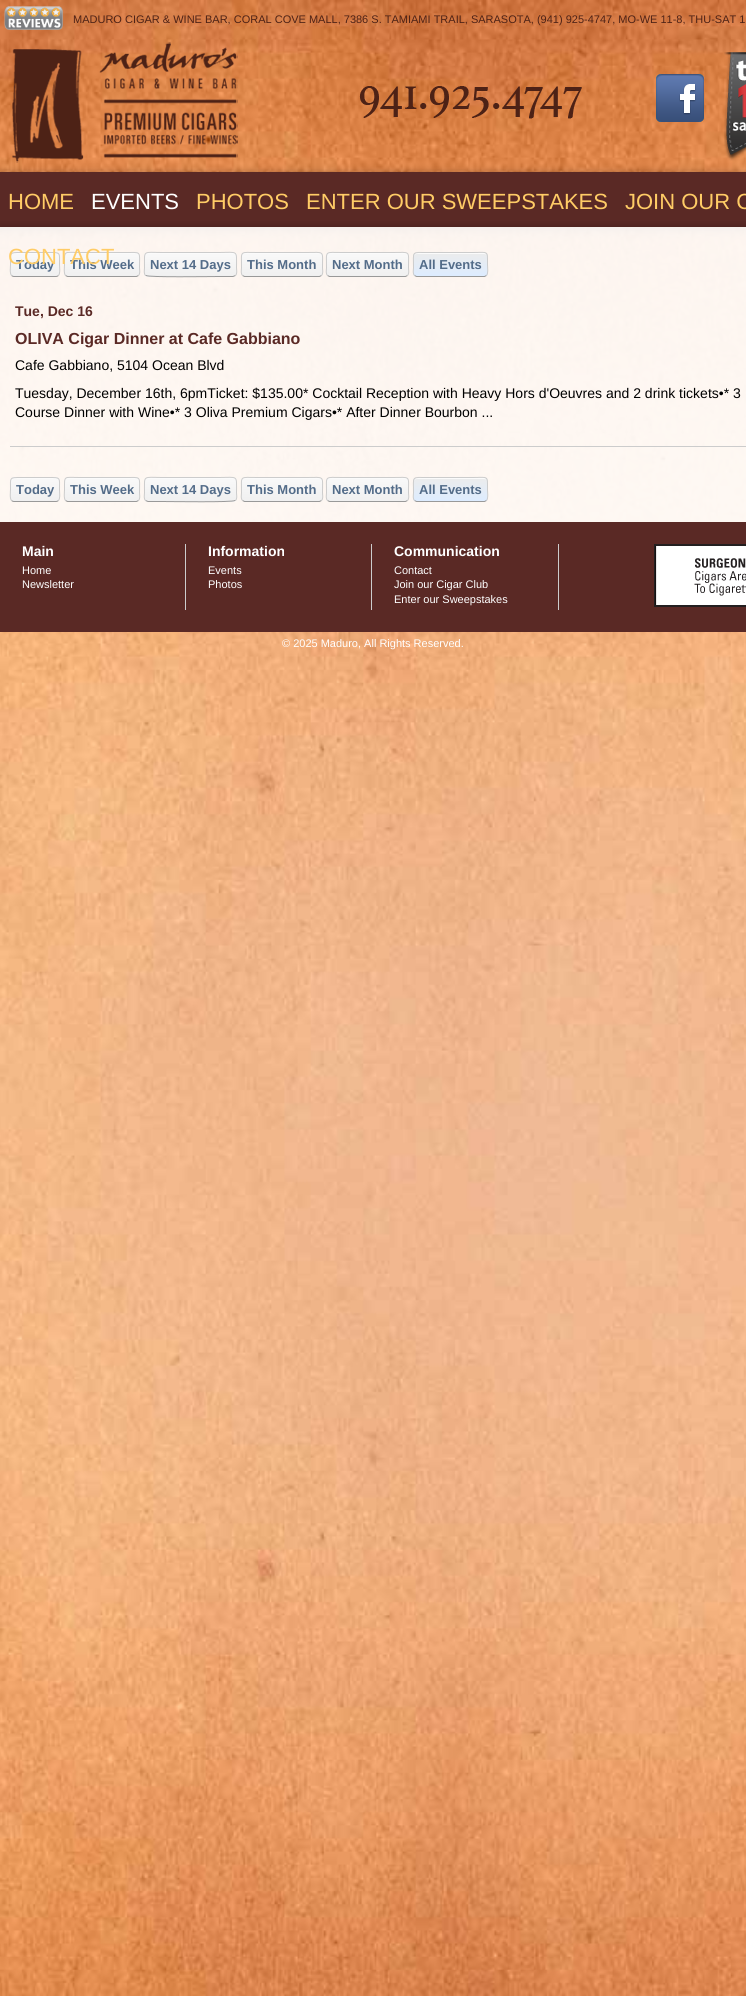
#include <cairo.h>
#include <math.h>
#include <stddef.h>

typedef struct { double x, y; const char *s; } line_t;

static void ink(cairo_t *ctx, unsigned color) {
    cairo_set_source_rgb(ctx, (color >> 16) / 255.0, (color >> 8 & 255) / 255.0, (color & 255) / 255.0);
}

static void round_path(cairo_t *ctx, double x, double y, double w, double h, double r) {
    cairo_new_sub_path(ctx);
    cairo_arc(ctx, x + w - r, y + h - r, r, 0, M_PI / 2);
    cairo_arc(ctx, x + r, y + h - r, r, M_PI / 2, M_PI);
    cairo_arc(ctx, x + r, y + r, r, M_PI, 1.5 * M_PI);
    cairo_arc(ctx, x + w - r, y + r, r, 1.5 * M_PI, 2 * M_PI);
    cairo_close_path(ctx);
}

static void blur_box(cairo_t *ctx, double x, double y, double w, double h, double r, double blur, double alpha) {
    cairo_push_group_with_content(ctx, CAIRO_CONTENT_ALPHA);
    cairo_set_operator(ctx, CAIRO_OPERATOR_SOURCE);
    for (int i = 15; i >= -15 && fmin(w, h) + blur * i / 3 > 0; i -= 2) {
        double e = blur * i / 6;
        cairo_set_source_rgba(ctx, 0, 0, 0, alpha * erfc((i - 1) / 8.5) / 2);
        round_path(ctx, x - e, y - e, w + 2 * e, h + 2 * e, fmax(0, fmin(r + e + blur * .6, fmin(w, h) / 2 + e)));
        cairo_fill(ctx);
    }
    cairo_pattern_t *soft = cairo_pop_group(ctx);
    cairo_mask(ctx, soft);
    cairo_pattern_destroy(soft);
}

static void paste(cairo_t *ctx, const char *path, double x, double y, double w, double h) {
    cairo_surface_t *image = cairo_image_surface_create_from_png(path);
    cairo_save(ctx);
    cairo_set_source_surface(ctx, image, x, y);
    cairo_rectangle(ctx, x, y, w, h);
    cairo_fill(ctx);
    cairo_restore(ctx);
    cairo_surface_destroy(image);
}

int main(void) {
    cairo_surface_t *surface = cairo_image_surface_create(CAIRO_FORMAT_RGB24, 746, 1996);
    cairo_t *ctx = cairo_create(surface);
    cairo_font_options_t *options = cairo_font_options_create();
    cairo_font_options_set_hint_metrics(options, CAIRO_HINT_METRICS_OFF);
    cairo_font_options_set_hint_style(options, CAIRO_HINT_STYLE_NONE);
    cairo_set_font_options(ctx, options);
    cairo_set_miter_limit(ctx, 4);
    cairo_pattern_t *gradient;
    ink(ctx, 0xFFFFFF);
    cairo_paint(ctx);
    paste(ctx, "media/1.png", 0, 0, 746, 1996);
    paste(ctx, "media/2.png", 4, 6, 59, 24);
    cairo_select_font_face(ctx, "Liberation Sans", CAIRO_FONT_SLANT_NORMAL, CAIRO_FONT_WEIGHT_NORMAL);
    cairo_set_font_size(ctx, 11);
    ink(ctx, 0x4D2216);
    cairo_move_to(ctx, 73, 23);
    cairo_show_text(ctx, "MADURO CIGAR & WINE BAR, CORAL COVE MALL, 7386 S. TAMIAMI TRAIL, SARASOTA, (941) 925-4747, MO-WE 11-8, THU-SAT 1");
    paste(ctx, "media/3.png", 12, 42, 570, 121);
    paste(ctx, "media/4.png", 656, 74, 48, 48);
    paste(ctx, "media/5.png", 724, 52, 22, 109);
    ink(ctx, 0x5A2925);
    cairo_rectangle(ctx, 0, 172, 746, 55);
    cairo_fill(ctx);
    cairo_save(ctx);
    cairo_set_fill_rule(ctx, CAIRO_FILL_RULE_EVEN_ODD);
    cairo_new_path(ctx);
    cairo_move_to(ctx, 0, 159);
    cairo_line_to(ctx, 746, 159);
    cairo_line_to(ctx, 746, 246);
    cairo_line_to(ctx, 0, 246);
    cairo_close_path(ctx);
    cairo_move_to(ctx, 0, 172);
    cairo_line_to(ctx, 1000, 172);
    cairo_line_to(ctx, 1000, 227);
    cairo_line_to(ctx, 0, 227);
    cairo_close_path(ctx);
    cairo_clip(ctx);
    ink(ctx, 0x000000);
    blur_box(ctx, 0, 175, 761, 55, 0, 5, 0.5);
    cairo_restore(ctx);
    cairo_set_font_size(ctx, 22);
    ink(ctx, 0xFFCC66);
    cairo_move_to(ctx, 8, 209);
    cairo_show_text(ctx, "HOME");
    ink(ctx, 0xFFFFFF);
    cairo_move_to(ctx, 91, 209);
    cairo_show_text(ctx, "EVENTS");
    ink(ctx, 0xFFCC66);
    {
        static const line_t items[] = {
            {196, 209, "PHOTOS"},
            {306, 209, "ENTER OUR SWEEPSTAKES"},
            {625, 209, "JOIN OUR C"},
        };
        for (size_t i = 0; i < sizeof items / sizeof *items; i++) {
            cairo_move_to(ctx, items[i].x, items[i].y);
            cairo_show_text(ctx, items[i].s);
        }
    }
    cairo_save(ctx);
    cairo_rectangle(ctx, 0, 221, 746, 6);
    cairo_clip(ctx);
    ink(ctx, 0x000000);
    blur_box(ctx, 0, 230, 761, 295, 0, 5, 0.5);
    cairo_restore(ctx);
    cairo_set_source_rgba(ctx, 1, 1, 1, 0.7);
    cairo_rectangle(ctx, 0, 227, 746, 295);
    cairo_fill(ctx);
    cairo_rectangle(ctx, 0, 227, 746, 295);
    cairo_fill(ctx);
    cairo_save(ctx);
    round_path(ctx, 10, 252, 50, 25, 4);
    cairo_clip(ctx);
    gradient = cairo_pattern_create_linear(35, 230, 35, 253);
    cairo_pattern_add_color_stop_rgba(gradient, 0, 0.976, 0.976, 0.976, 1);
    cairo_pattern_add_color_stop_rgba(gradient, 1, 0.941, 0.941, 0.941, 1);
    cairo_set_source(ctx, gradient);
    cairo_pattern_destroy(gradient);
    cairo_rectangle(ctx, 10, 252, 50, 1);
    cairo_fill(ctx);
    gradient = cairo_pattern_create_linear(35, 253, 35, 276);
    cairo_pattern_add_color_stop_rgba(gradient, 0, 0.976, 0.976, 0.976, 1);
    cairo_pattern_add_color_stop_rgba(gradient, 1, 0.941, 0.941, 0.941, 1);
    cairo_set_source(ctx, gradient);
    cairo_pattern_destroy(gradient);
    cairo_rectangle(ctx, 10, 253, 50, 23);
    cairo_fill(ctx);
    cairo_restore(ctx);
    ink(ctx, 0xFBFBFB);
    cairo_new_path(ctx);
    cairo_move_to(ctx, 14, 254);
    cairo_line_to(ctx, 56, 254);
    cairo_curve_to(ctx, 58, 254, 59, 255, 59, 257);
    cairo_curve_to(ctx, 59, 251, 53, 253, 49, 253);
    cairo_line_to(ctx, 21, 253);
    cairo_curve_to(ctx, 17, 253, 11, 251, 11, 257);
    cairo_curve_to(ctx, 11, 255, 12, 254, 14, 254);
    cairo_close_path(ctx);
    cairo_fill(ctx);
    cairo_new_path(ctx);
    cairo_move_to(ctx, 58.5, 275.5);
    cairo_curve_to(ctx, 58, 276, 57, 276.5, 56, 276.5);
    cairo_line_to(ctx, 14, 276.5);
    cairo_curve_to(ctx, 13, 276.5, 12, 276, 11.5, 275.5);
    ink(ctx, 0x999999);
    cairo_set_line_width(ctx, 1);
    cairo_stroke(ctx);
    cairo_new_path(ctx);
    cairo_move_to(ctx, 11.5, 275.5);
    cairo_curve_to(ctx, 9.5, 273, 10.5, 267, 10.5, 264.5);
    cairo_curve_to(ctx, 10.5, 252.5, 9, 252.5, 21, 252.5);
    cairo_line_to(ctx, 49, 252.5);
    cairo_curve_to(ctx, 61, 252.5, 59.5, 252.5, 59.5, 264.5);
    cairo_curve_to(ctx, 59.5, 267, 60.5, 273, 58.5, 275.5);
    ink(ctx, 0xCCCCCC);
    cairo_stroke(ctx);
    cairo_select_font_face(ctx, "Liberation Sans", CAIRO_FONT_SLANT_NORMAL, CAIRO_FONT_WEIGHT_BOLD);
    cairo_set_font_size(ctx, 13);
    ink(ctx, 0x536C89);
    cairo_move_to(ctx, 16, 269);
    cairo_show_text(ctx, "Today");
    cairo_save(ctx);
    round_path(ctx, 64, 252, 76, 25, 4);
    cairo_clip(ctx);
    gradient = cairo_pattern_create_linear(102, 230, 102, 253);
    cairo_pattern_add_color_stop_rgba(gradient, 0, 0.976, 0.976, 0.976, 1);
    cairo_pattern_add_color_stop_rgba(gradient, 1, 0.941, 0.941, 0.941, 1);
    cairo_set_source(ctx, gradient);
    cairo_pattern_destroy(gradient);
    cairo_rectangle(ctx, 64, 252, 76, 1);
    cairo_fill(ctx);
    gradient = cairo_pattern_create_linear(102, 253, 102, 276);
    cairo_pattern_add_color_stop_rgba(gradient, 0, 0.976, 0.976, 0.976, 1);
    cairo_pattern_add_color_stop_rgba(gradient, 1, 0.941, 0.941, 0.941, 1);
    cairo_set_source(ctx, gradient);
    cairo_pattern_destroy(gradient);
    cairo_rectangle(ctx, 64, 253, 76, 23);
    cairo_fill(ctx);
    cairo_restore(ctx);
    ink(ctx, 0xFBFBFB);
    cairo_new_path(ctx);
    cairo_move_to(ctx, 68, 254);
    cairo_line_to(ctx, 136, 254);
    cairo_curve_to(ctx, 138, 254, 139, 255, 139, 257);
    cairo_curve_to(ctx, 139, 250, 129, 253, 125, 253);
    cairo_line_to(ctx, 79, 253);
    cairo_curve_to(ctx, 75, 253, 65, 250, 65, 257);
    cairo_curve_to(ctx, 65, 255, 66, 254, 68, 254);
    cairo_close_path(ctx);
    cairo_fill(ctx);
    cairo_new_path(ctx);
    cairo_move_to(ctx, 138.5, 275.5);
    cairo_line_to(ctx, 136.5, 276.5);
    cairo_line_to(ctx, 67.5, 276.5);
    cairo_line_to(ctx, 65.5, 275.5);
    ink(ctx, 0x999999);
    cairo_stroke(ctx);
    cairo_new_path(ctx);
    cairo_move_to(ctx, 65.5, 275.5);
    cairo_curve_to(ctx, 63.5, 273, 64.5, 267, 64.5, 264.5);
    cairo_curve_to(ctx, 64.5, 250, 63.5, 252.5, 79.5, 252.5);
    cairo_line_to(ctx, 124.5, 252.5);
    cairo_curve_to(ctx, 142, 252.5, 139.5, 250.5, 139.5, 267.5);
    cairo_curve_to(ctx, 139.5, 269.5, 140.5, 273.5, 138.5, 275.5);
    ink(ctx, 0xCCCCCC);
    cairo_stroke(ctx);
    ink(ctx, 0x536C89);
    cairo_move_to(ctx, 70, 269);
    cairo_show_text(ctx, "This Week");
    cairo_select_font_face(ctx, "Liberation Sans", CAIRO_FONT_SLANT_NORMAL, CAIRO_FONT_WEIGHT_NORMAL);
    cairo_set_font_size(ctx, 22);
    ink(ctx, 0xFFCC66);
    cairo_move_to(ctx, 8, 264);
    cairo_show_text(ctx, "CONTACT");
    cairo_save(ctx);
    round_path(ctx, 144, 252, 93, 25, 4);
    cairo_clip(ctx);
    gradient = cairo_pattern_create_linear(191, 253, 191, 276);
    cairo_pattern_add_color_stop_rgba(gradient, 0, 0.976, 0.976, 0.976, 1);
    cairo_pattern_add_color_stop_rgba(gradient, 1, 0.941, 0.941, 0.941, 1);
    cairo_set_source(ctx, gradient);
    cairo_pattern_destroy(gradient);
    cairo_rectangle(ctx, 144, 253, 93, 23);
    cairo_fill(ctx);
    gradient = cairo_pattern_create_linear(191, 276, 191, 299);
    cairo_pattern_add_color_stop_rgba(gradient, 0, 0.976, 0.976, 0.976, 1);
    cairo_pattern_add_color_stop_rgba(gradient, 1, 0.941, 0.941, 0.941, 1);
    cairo_set_source(ctx, gradient);
    cairo_pattern_destroy(gradient);
    cairo_rectangle(ctx, 144, 276, 93, 1);
    cairo_fill(ctx);
    cairo_restore(ctx);
    ink(ctx, 0xFBFBFB);
    cairo_new_path(ctx);
    cairo_move_to(ctx, 148, 254);
    cairo_line_to(ctx, 233, 254);
    cairo_curve_to(ctx, 235, 254, 236, 255, 236, 257);
    cairo_curve_to(ctx, 236, 249, 222, 253, 219, 253);
    cairo_line_to(ctx, 162, 253);
    cairo_curve_to(ctx, 159, 253, 145, 249, 145, 257);
    cairo_curve_to(ctx, 145, 255, 146, 254, 148, 254);
    cairo_close_path(ctx);
    cairo_fill(ctx);
    cairo_new_path(ctx);
    cairo_move_to(ctx, 235.5, 275.5);
    cairo_line_to(ctx, 233, 276.5);
    cairo_line_to(ctx, 219, 276.5);
    cairo_curve_to(ctx, 210.5, 276.5, 148, 277.5, 146, 275.5);
    cairo_line_to(ctx, 145.5, 275.5);
    ink(ctx, 0x999999);
    cairo_stroke(ctx);
    cairo_new_path(ctx);
    cairo_move_to(ctx, 145.5, 275.5);
    cairo_curve_to(ctx, 143.5, 273.5, 144.5, 269.5, 144.5, 267.5);
    cairo_curve_to(ctx, 144.5, 249.5, 142.5, 252.5, 162, 252.5);
    cairo_line_to(ctx, 219, 252.5);
    cairo_curve_to(ctx, 238.5, 252.5, 236.5, 249.5, 236.5, 267.5);
    cairo_curve_to(ctx, 236.5, 269.5, 237.5, 273.5, 235.5, 275.5);
    ink(ctx, 0xCCCCCC);
    cairo_stroke(ctx);
    cairo_select_font_face(ctx, "Liberation Sans", CAIRO_FONT_SLANT_NORMAL, CAIRO_FONT_WEIGHT_BOLD);
    cairo_set_font_size(ctx, 13);
    ink(ctx, 0x536C89);
    cairo_move_to(ctx, 150, 269);
    cairo_show_text(ctx, "Next 14 Days");
    cairo_save(ctx);
    round_path(ctx, 241, 252, 82, 25, 4);
    cairo_clip(ctx);
    gradient = cairo_pattern_create_linear(282, 253, 282, 276);
    cairo_pattern_add_color_stop_rgba(gradient, 0, 0.976, 0.976, 0.976, 1);
    cairo_pattern_add_color_stop_rgba(gradient, 1, 0.941, 0.941, 0.941, 1);
    cairo_set_source(ctx, gradient);
    cairo_pattern_destroy(gradient);
    cairo_rectangle(ctx, 241, 253, 82, 23);
    cairo_fill(ctx);
    cairo_restore(ctx);
    ink(ctx, 0xFBFBFB);
    cairo_new_path(ctx);
    cairo_move_to(ctx, 245, 254);
    cairo_line_to(ctx, 319, 254);
    cairo_curve_to(ctx, 321, 254, 322, 255, 322, 257);
    cairo_curve_to(ctx, 322, 250, 311, 253, 307, 253);
    cairo_line_to(ctx, 257, 253);
    cairo_curve_to(ctx, 253, 253, 242, 250, 242, 257);
    cairo_curve_to(ctx, 242, 255, 243, 254, 245, 254);
    cairo_close_path(ctx);
    cairo_fill(ctx);
    cairo_new_path(ctx);
    cairo_move_to(ctx, 321.5, 275.5);
    cairo_line_to(ctx, 319.5, 276.5);
    cairo_line_to(ctx, 244.5, 276.5);
    cairo_line_to(ctx, 242.5, 275.5);
    ink(ctx, 0x999999);
    cairo_stroke(ctx);
    cairo_new_path(ctx);
    cairo_move_to(ctx, 242.5, 275.5);
    cairo_curve_to(ctx, 240.5, 273.5, 241.5, 269.5, 241.5, 267.5);
    cairo_curve_to(ctx, 241.5, 250, 239, 252.5, 257.5, 252.5);
    cairo_line_to(ctx, 306.5, 252.5);
    cairo_curve_to(ctx, 325, 252.5, 322.5, 250, 322.5, 267.5);
    cairo_curve_to(ctx, 322.5, 269.5, 323.5, 273.5, 321.5, 275.5);
    ink(ctx, 0xCCCCCC);
    cairo_stroke(ctx);
    ink(ctx, 0x536C89);
    cairo_move_to(ctx, 247, 269);
    cairo_show_text(ctx, "This Month");
    cairo_save(ctx);
    round_path(ctx, 326, 252, 83, 25, 4);
    cairo_clip(ctx);
    gradient = cairo_pattern_create_linear(368, 253, 368, 276);
    cairo_pattern_add_color_stop_rgba(gradient, 0, 0.976, 0.976, 0.976, 1);
    cairo_pattern_add_color_stop_rgba(gradient, 1, 0.941, 0.941, 0.941, 1);
    cairo_set_source(ctx, gradient);
    cairo_pattern_destroy(gradient);
    cairo_rectangle(ctx, 326, 253, 83, 23);
    cairo_fill(ctx);
    cairo_restore(ctx);
    ink(ctx, 0xFBFBFB);
    cairo_new_path(ctx);
    cairo_move_to(ctx, 330, 254);
    cairo_line_to(ctx, 405, 254);
    cairo_curve_to(ctx, 407, 254, 408, 255, 408, 257);
    cairo_curve_to(ctx, 408, 250, 396, 253, 392, 253);
    cairo_line_to(ctx, 342, 253);
    cairo_curve_to(ctx, 339, 253, 327, 250, 327, 257);
    cairo_curve_to(ctx, 327, 255, 328, 254, 330, 254);
    cairo_close_path(ctx);
    cairo_fill(ctx);
    cairo_new_path(ctx);
    cairo_move_to(ctx, 407.5, 275.5);
    cairo_line_to(ctx, 405.5, 276.5);
    cairo_line_to(ctx, 329.5, 276.5);
    cairo_line_to(ctx, 327.5, 275.5);
    ink(ctx, 0x999999);
    cairo_stroke(ctx);
    cairo_new_path(ctx);
    cairo_move_to(ctx, 327.5, 275.5);
    cairo_curve_to(ctx, 325.5, 273.5, 326.5, 269.5, 326.5, 267.5);
    cairo_curve_to(ctx, 326.5, 250, 324, 252.5, 342.5, 252.5);
    cairo_line_to(ctx, 392.5, 252.5);
    cairo_curve_to(ctx, 411, 252.5, 408.5, 250, 408.5, 267.5);
    cairo_curve_to(ctx, 408.5, 269.5, 409.5, 273.5, 407.5, 275.5);
    ink(ctx, 0xCCCCCC);
    cairo_stroke(ctx);
    ink(ctx, 0x536C89);
    cairo_move_to(ctx, 332, 269);
    cairo_show_text(ctx, "Next Month");
    cairo_save(ctx);
    round_path(ctx, 413, 252, 75, 25, 4);
    cairo_clip(ctx);
    gradient = cairo_pattern_create_linear(451, 253, 451, 276);
    cairo_pattern_add_color_stop_rgba(gradient, 0, 0.925, 0.925, 0.925, 1);
    cairo_pattern_add_color_stop_rgba(gradient, 1, 0.867, 0.925, 1, 1);
    cairo_set_source(ctx, gradient);
    cairo_pattern_destroy(gradient);
    cairo_rectangle(ctx, 413, 253, 75, 23);
    cairo_fill(ctx);
    cairo_restore(ctx);
    ink(ctx, 0xFBFBFB);
    cairo_new_path(ctx);
    cairo_move_to(ctx, 417, 254);
    cairo_line_to(ctx, 484, 254);
    cairo_curve_to(ctx, 486, 254, 487, 255, 487, 257);
    cairo_curve_to(ctx, 487, 250, 477, 253, 473, 253);
    cairo_line_to(ctx, 428, 253);
    cairo_curve_to(ctx, 424, 253, 414, 250, 414, 257);
    cairo_curve_to(ctx, 414, 255, 415, 254, 417, 254);
    cairo_close_path(ctx);
    cairo_fill(ctx);
    cairo_new_path(ctx);
    cairo_move_to(ctx, 486.5, 275.5);
    cairo_line_to(ctx, 484.5, 276.5);
    cairo_line_to(ctx, 416.5, 276.5);
    cairo_line_to(ctx, 414.5, 275.5);
    ink(ctx, 0x999999);
    cairo_stroke(ctx);
    cairo_new_path(ctx);
    cairo_move_to(ctx, 414.5, 275.5);
    cairo_curve_to(ctx, 412.5, 273.5, 413.5, 269.5, 413.5, 267.5);
    cairo_curve_to(ctx, 413.5, 250.5, 411, 252.5, 428, 252.5);
    cairo_line_to(ctx, 473, 252.5);
    cairo_curve_to(ctx, 488.5, 252.5, 487.5, 250, 487.5, 264.5);
    cairo_curve_to(ctx, 487.5, 267, 488.5, 273, 486.5, 275.5);
    ink(ctx, 0xCCCCCC);
    cairo_stroke(ctx);
    ink(ctx, 0x536C89);
    cairo_move_to(ctx, 419, 269);
    cairo_show_text(ctx, "All Events");
    ink(ctx, 0xCCCCCC);
    cairo_rectangle(ctx, 10, 446, 736, 1);
    cairo_fill(ctx);
    cairo_set_font_size(ctx, 14);
    ink(ctx, 0x5A2925);
    cairo_move_to(ctx, 15, 316);
    cairo_show_text(ctx, "Tue, Dec 16");
    cairo_set_font_size(ctx, 16);
    cairo_move_to(ctx, 15, 344);
    cairo_show_text(ctx, "OLIVA Cigar Dinner at Cafe Gabbiano");
    cairo_select_font_face(ctx, "Liberation Sans", CAIRO_FONT_SLANT_NORMAL, CAIRO_FONT_WEIGHT_NORMAL);
    cairo_set_font_size(ctx, 14);
    ink(ctx, 0x000000);
    {
        static const line_t items[] = {
            {15, 370, "Cafe Gabbiano, 5104 Ocean Blvd"},
            {15, 398, "Tuesday, December 16th, 6pmTicket: $135.00* Cocktail Reception with Heavy Hors d'Oeuvres and 2 drink tickets•* 3"},
            {15, 417, "Course Dinner with Wine•* 3 Oliva Premium Cigars•* After Dinner Bourbon ..."},
        };
        for (size_t i = 0; i < sizeof items / sizeof *items; i++) {
            cairo_move_to(ctx, items[i].x, items[i].y);
            cairo_show_text(ctx, items[i].s);
        }
    }
    cairo_save(ctx);
    round_path(ctx, 10, 477, 50, 25, 4);
    cairo_clip(ctx);
    gradient = cairo_pattern_create_linear(35, 455, 35, 478);
    cairo_pattern_add_color_stop_rgba(gradient, 0, 0.976, 0.976, 0.976, 1);
    cairo_pattern_add_color_stop_rgba(gradient, 1, 0.941, 0.941, 0.941, 1);
    cairo_set_source(ctx, gradient);
    cairo_pattern_destroy(gradient);
    cairo_rectangle(ctx, 10, 477, 50, 1);
    cairo_fill(ctx);
    gradient = cairo_pattern_create_linear(35, 478, 35, 501);
    cairo_pattern_add_color_stop_rgba(gradient, 0, 0.976, 0.976, 0.976, 1);
    cairo_pattern_add_color_stop_rgba(gradient, 1, 0.941, 0.941, 0.941, 1);
    cairo_set_source(ctx, gradient);
    cairo_pattern_destroy(gradient);
    cairo_rectangle(ctx, 10, 478, 50, 23);
    cairo_fill(ctx);
    cairo_restore(ctx);
    ink(ctx, 0xFBFBFB);
    cairo_new_path(ctx);
    cairo_move_to(ctx, 14, 479);
    cairo_line_to(ctx, 56, 479);
    cairo_curve_to(ctx, 58, 479, 59, 480, 59, 482);
    cairo_curve_to(ctx, 59, 476, 53, 478, 49, 478);
    cairo_line_to(ctx, 21, 478);
    cairo_curve_to(ctx, 17, 478, 11, 476, 11, 482);
    cairo_curve_to(ctx, 11, 480, 12, 479, 14, 479);
    cairo_close_path(ctx);
    cairo_fill(ctx);
    cairo_new_path(ctx);
    cairo_move_to(ctx, 58.5, 500.5);
    cairo_curve_to(ctx, 58, 501, 57, 501.5, 56, 501.5);
    cairo_line_to(ctx, 14, 501.5);
    cairo_curve_to(ctx, 13, 501.5, 12, 501, 11.5, 500.5);
    ink(ctx, 0x999999);
    cairo_stroke(ctx);
    cairo_new_path(ctx);
    cairo_move_to(ctx, 11.5, 500.5);
    cairo_curve_to(ctx, 9.5, 498, 10.5, 492, 10.5, 489.5);
    cairo_curve_to(ctx, 10.5, 477.5, 9, 477.5, 21, 477.5);
    cairo_line_to(ctx, 49, 477.5);
    cairo_curve_to(ctx, 61, 477.5, 59.5, 477.5, 59.5, 489.5);
    cairo_curve_to(ctx, 59.5, 492, 60.5, 498, 58.5, 500.5);
    ink(ctx, 0xCCCCCC);
    cairo_stroke(ctx);
    cairo_select_font_face(ctx, "Liberation Sans", CAIRO_FONT_SLANT_NORMAL, CAIRO_FONT_WEIGHT_BOLD);
    cairo_set_font_size(ctx, 13);
    ink(ctx, 0x536C89);
    cairo_move_to(ctx, 16, 494);
    cairo_show_text(ctx, "Today");
    cairo_save(ctx);
    round_path(ctx, 64, 477, 76, 25, 4);
    cairo_clip(ctx);
    gradient = cairo_pattern_create_linear(102, 455, 102, 478);
    cairo_pattern_add_color_stop_rgba(gradient, 0, 0.976, 0.976, 0.976, 1);
    cairo_pattern_add_color_stop_rgba(gradient, 1, 0.941, 0.941, 0.941, 1);
    cairo_set_source(ctx, gradient);
    cairo_pattern_destroy(gradient);
    cairo_rectangle(ctx, 64, 477, 76, 1);
    cairo_fill(ctx);
    gradient = cairo_pattern_create_linear(102, 478, 102, 501);
    cairo_pattern_add_color_stop_rgba(gradient, 0, 0.976, 0.976, 0.976, 1);
    cairo_pattern_add_color_stop_rgba(gradient, 1, 0.941, 0.941, 0.941, 1);
    cairo_set_source(ctx, gradient);
    cairo_pattern_destroy(gradient);
    cairo_rectangle(ctx, 64, 478, 76, 23);
    cairo_fill(ctx);
    cairo_restore(ctx);
    ink(ctx, 0xFBFBFB);
    cairo_new_path(ctx);
    cairo_move_to(ctx, 68, 479);
    cairo_line_to(ctx, 136, 479);
    cairo_curve_to(ctx, 138, 479, 139, 480, 139, 482);
    cairo_curve_to(ctx, 139, 475, 129, 478, 125, 478);
    cairo_line_to(ctx, 79, 478);
    cairo_curve_to(ctx, 75, 478, 65, 475, 65, 482);
    cairo_curve_to(ctx, 65, 480, 66, 479, 68, 479);
    cairo_close_path(ctx);
    cairo_fill(ctx);
    cairo_new_path(ctx);
    cairo_move_to(ctx, 138.5, 500.5);
    cairo_line_to(ctx, 136.5, 501.5);
    cairo_line_to(ctx, 67.5, 501.5);
    cairo_line_to(ctx, 65.5, 500.5);
    ink(ctx, 0x999999);
    cairo_stroke(ctx);
    cairo_new_path(ctx);
    cairo_move_to(ctx, 65.5, 500.5);
    cairo_curve_to(ctx, 63.5, 498, 64.5, 492, 64.5, 489.5);
    cairo_curve_to(ctx, 64.5, 475, 63.5, 477.5, 79.5, 477.5);
    cairo_line_to(ctx, 124.5, 477.5);
    cairo_curve_to(ctx, 142, 477.5, 139.5, 475.5, 139.5, 492.5);
    cairo_curve_to(ctx, 139.5, 494.5, 140.5, 498.5, 138.5, 500.5);
    ink(ctx, 0xCCCCCC);
    cairo_stroke(ctx);
    ink(ctx, 0x536C89);
    cairo_move_to(ctx, 70, 494);
    cairo_show_text(ctx, "This Week");
    cairo_save(ctx);
    round_path(ctx, 144, 477, 93, 25, 4);
    cairo_clip(ctx);
    gradient = cairo_pattern_create_linear(191, 478, 191, 501);
    cairo_pattern_add_color_stop_rgba(gradient, 0, 0.976, 0.976, 0.976, 1);
    cairo_pattern_add_color_stop_rgba(gradient, 1, 0.941, 0.941, 0.941, 1);
    cairo_set_source(ctx, gradient);
    cairo_pattern_destroy(gradient);
    cairo_rectangle(ctx, 144, 478, 93, 23);
    cairo_fill(ctx);
    gradient = cairo_pattern_create_linear(191, 501, 191, 524);
    cairo_pattern_add_color_stop_rgba(gradient, 0, 0.976, 0.976, 0.976, 1);
    cairo_pattern_add_color_stop_rgba(gradient, 1, 0.941, 0.941, 0.941, 1);
    cairo_set_source(ctx, gradient);
    cairo_pattern_destroy(gradient);
    cairo_rectangle(ctx, 144, 501, 93, 1);
    cairo_fill(ctx);
    cairo_restore(ctx);
    ink(ctx, 0xFBFBFB);
    cairo_new_path(ctx);
    cairo_move_to(ctx, 148, 479);
    cairo_line_to(ctx, 233, 479);
    cairo_curve_to(ctx, 235, 479, 236, 480, 236, 482);
    cairo_curve_to(ctx, 236, 474, 222, 478, 219, 478);
    cairo_line_to(ctx, 162, 478);
    cairo_curve_to(ctx, 159, 478, 145, 474, 145, 482);
    cairo_curve_to(ctx, 145, 480, 146, 479, 148, 479);
    cairo_close_path(ctx);
    cairo_fill(ctx);
    cairo_new_path(ctx);
    cairo_move_to(ctx, 235.5, 500.5);
    cairo_line_to(ctx, 235, 500.5);
    cairo_curve_to(ctx, 233, 502.5, 170.5, 501.5, 162, 501.5);
    cairo_line_to(ctx, 148, 501.5);
    cairo_line_to(ctx, 145.5, 500.5);
    ink(ctx, 0x999999);
    cairo_stroke(ctx);
    cairo_new_path(ctx);
    cairo_move_to(ctx, 145.5, 500.5);
    cairo_curve_to(ctx, 143.5, 498.5, 144.5, 494.5, 144.5, 492.5);
    cairo_curve_to(ctx, 144.5, 474.5, 142.5, 477.5, 162, 477.5);
    cairo_line_to(ctx, 219, 477.5);
    cairo_curve_to(ctx, 238.5, 477.5, 236.5, 474.5, 236.5, 492.5);
    cairo_curve_to(ctx, 236.5, 494.5, 237.5, 498.5, 235.5, 500.5);
    ink(ctx, 0xCCCCCC);
    cairo_stroke(ctx);
    ink(ctx, 0x536C89);
    cairo_move_to(ctx, 150, 494);
    cairo_show_text(ctx, "Next 14 Days");
    cairo_save(ctx);
    round_path(ctx, 241, 477, 82, 25, 4);
    cairo_clip(ctx);
    gradient = cairo_pattern_create_linear(282, 478, 282, 501);
    cairo_pattern_add_color_stop_rgba(gradient, 0, 0.976, 0.976, 0.976, 1);
    cairo_pattern_add_color_stop_rgba(gradient, 1, 0.941, 0.941, 0.941, 1);
    cairo_set_source(ctx, gradient);
    cairo_pattern_destroy(gradient);
    cairo_rectangle(ctx, 241, 478, 82, 23);
    cairo_fill(ctx);
    cairo_restore(ctx);
    ink(ctx, 0xFBFBFB);
    cairo_new_path(ctx);
    cairo_move_to(ctx, 245, 479);
    cairo_line_to(ctx, 319, 479);
    cairo_curve_to(ctx, 321, 479, 322, 480, 322, 482);
    cairo_curve_to(ctx, 322, 475, 311, 478, 307, 478);
    cairo_line_to(ctx, 257, 478);
    cairo_curve_to(ctx, 253, 478, 242, 475, 242, 482);
    cairo_curve_to(ctx, 242, 480, 243, 479, 245, 479);
    cairo_close_path(ctx);
    cairo_fill(ctx);
    cairo_new_path(ctx);
    cairo_move_to(ctx, 321.5, 500.5);
    cairo_line_to(ctx, 319.5, 501.5);
    cairo_line_to(ctx, 244.5, 501.5);
    cairo_line_to(ctx, 242.5, 500.5);
    ink(ctx, 0x999999);
    cairo_stroke(ctx);
    cairo_new_path(ctx);
    cairo_move_to(ctx, 242.5, 500.5);
    cairo_curve_to(ctx, 240.5, 498.5, 241.5, 494.5, 241.5, 492.5);
    cairo_curve_to(ctx, 241.5, 475, 239, 477.5, 257.5, 477.5);
    cairo_line_to(ctx, 306.5, 477.5);
    cairo_curve_to(ctx, 325, 477.5, 322.5, 475, 322.5, 492.5);
    cairo_curve_to(ctx, 322.5, 494.5, 323.5, 498.5, 321.5, 500.5);
    ink(ctx, 0xCCCCCC);
    cairo_stroke(ctx);
    ink(ctx, 0x536C89);
    cairo_move_to(ctx, 247, 494);
    cairo_show_text(ctx, "This Month");
    cairo_save(ctx);
    round_path(ctx, 326, 477, 83, 25, 4);
    cairo_clip(ctx);
    gradient = cairo_pattern_create_linear(368, 478, 368, 501);
    cairo_pattern_add_color_stop_rgba(gradient, 0, 0.976, 0.976, 0.976, 1);
    cairo_pattern_add_color_stop_rgba(gradient, 1, 0.941, 0.941, 0.941, 1);
    cairo_set_source(ctx, gradient);
    cairo_pattern_destroy(gradient);
    cairo_rectangle(ctx, 326, 478, 83, 23);
    cairo_fill(ctx);
    cairo_restore(ctx);
    ink(ctx, 0xFBFBFB);
    cairo_new_path(ctx);
    cairo_move_to(ctx, 330, 479);
    cairo_line_to(ctx, 405, 479);
    cairo_curve_to(ctx, 407, 479, 408, 480, 408, 482);
    cairo_curve_to(ctx, 408, 475, 396, 478, 392, 478);
    cairo_line_to(ctx, 342, 478);
    cairo_curve_to(ctx, 339, 478, 327, 475, 327, 482);
    cairo_curve_to(ctx, 327, 480, 328, 479, 330, 479);
    cairo_close_path(ctx);
    cairo_fill(ctx);
    cairo_new_path(ctx);
    cairo_move_to(ctx, 407.5, 500.5);
    cairo_line_to(ctx, 405.5, 501.5);
    cairo_line_to(ctx, 329.5, 501.5);
    cairo_line_to(ctx, 327.5, 500.5);
    ink(ctx, 0x999999);
    cairo_stroke(ctx);
    cairo_new_path(ctx);
    cairo_move_to(ctx, 327.5, 500.5);
    cairo_curve_to(ctx, 325.5, 498.5, 326.5, 494.5, 326.5, 492.5);
    cairo_curve_to(ctx, 326.5, 475, 324, 477.5, 342.5, 477.5);
    cairo_line_to(ctx, 392.5, 477.5);
    cairo_curve_to(ctx, 411, 477.5, 408.5, 475, 408.5, 492.5);
    cairo_curve_to(ctx, 408.5, 494.5, 409.5, 498.5, 407.5, 500.5);
    ink(ctx, 0xCCCCCC);
    cairo_stroke(ctx);
    ink(ctx, 0x536C89);
    cairo_move_to(ctx, 332, 494);
    cairo_show_text(ctx, "Next Month");
    cairo_save(ctx);
    round_path(ctx, 413, 477, 75, 25, 4);
    cairo_clip(ctx);
    gradient = cairo_pattern_create_linear(451, 478, 451, 501);
    cairo_pattern_add_color_stop_rgba(gradient, 0, 0.925, 0.925, 0.925, 1);
    cairo_pattern_add_color_stop_rgba(gradient, 1, 0.867, 0.925, 1, 1);
    cairo_set_source(ctx, gradient);
    cairo_pattern_destroy(gradient);
    cairo_rectangle(ctx, 413, 478, 75, 23);
    cairo_fill(ctx);
    cairo_restore(ctx);
    ink(ctx, 0xFBFBFB);
    cairo_new_path(ctx);
    cairo_move_to(ctx, 417, 479);
    cairo_line_to(ctx, 484, 479);
    cairo_curve_to(ctx, 486, 479, 487, 480, 487, 482);
    cairo_curve_to(ctx, 487, 475, 477, 478, 473, 478);
    cairo_line_to(ctx, 428, 478);
    cairo_curve_to(ctx, 424, 478, 414, 475, 414, 482);
    cairo_curve_to(ctx, 414, 480, 415, 479, 417, 479);
    cairo_close_path(ctx);
    cairo_fill(ctx);
    cairo_new_path(ctx);
    cairo_move_to(ctx, 486.5, 500.5);
    cairo_line_to(ctx, 484.5, 501.5);
    cairo_line_to(ctx, 416.5, 501.5);
    cairo_line_to(ctx, 414.5, 500.5);
    ink(ctx, 0x999999);
    cairo_stroke(ctx);
    cairo_new_path(ctx);
    cairo_move_to(ctx, 414.5, 500.5);
    cairo_curve_to(ctx, 412.5, 498.5, 413.5, 494.5, 413.5, 492.5);
    cairo_curve_to(ctx, 413.5, 475.5, 411, 477.5, 428, 477.5);
    cairo_line_to(ctx, 473, 477.5);
    cairo_curve_to(ctx, 488.5, 477.5, 487.5, 475, 487.5, 489.5);
    cairo_curve_to(ctx, 487.5, 492, 488.5, 498, 486.5, 500.5);
    ink(ctx, 0xCCCCCC);
    cairo_stroke(ctx);
    ink(ctx, 0x536C89);
    cairo_move_to(ctx, 419, 494);
    cairo_show_text(ctx, "All Events");
    ink(ctx, 0x5A2925);
    cairo_rectangle(ctx, 0, 522, 746, 110);
    cairo_fill(ctx);
    cairo_set_font_size(ctx, 14);
    ink(ctx, 0xFFFFFF);
    cairo_move_to(ctx, 22, 556);
    cairo_show_text(ctx, "Main");
    cairo_select_font_face(ctx, "Liberation Sans", CAIRO_FONT_SLANT_NORMAL, CAIRO_FONT_WEIGHT_NORMAL);
    cairo_set_font_size(ctx, 11);
    cairo_move_to(ctx, 22, 574);
    cairo_show_text(ctx, "Home");
    cairo_move_to(ctx, 22, 588);
    cairo_show_text(ctx, "Newsletter");
    ink(ctx, 0xCCCCCC);
    cairo_rectangle(ctx, 185, 544, 1, 66);
    cairo_fill(ctx);
    cairo_select_font_face(ctx, "Liberation Sans", CAIRO_FONT_SLANT_NORMAL, CAIRO_FONT_WEIGHT_BOLD);
    cairo_set_font_size(ctx, 14);
    ink(ctx, 0xFFFFFF);
    cairo_move_to(ctx, 208, 556);
    cairo_show_text(ctx, "Information");
    cairo_select_font_face(ctx, "Liberation Sans", CAIRO_FONT_SLANT_NORMAL, CAIRO_FONT_WEIGHT_NORMAL);
    cairo_set_font_size(ctx, 11);
    cairo_move_to(ctx, 208, 574);
    cairo_show_text(ctx, "Events");
    cairo_move_to(ctx, 208, 588);
    cairo_show_text(ctx, "Photos");
    ink(ctx, 0xCCCCCC);
    cairo_rectangle(ctx, 371, 544, 1, 66);
    cairo_fill(ctx);
    cairo_select_font_face(ctx, "Liberation Sans", CAIRO_FONT_SLANT_NORMAL, CAIRO_FONT_WEIGHT_BOLD);
    cairo_set_font_size(ctx, 14);
    ink(ctx, 0xFFFFFF);
    cairo_move_to(ctx, 394, 556);
    cairo_show_text(ctx, "Communication");
    cairo_select_font_face(ctx, "Liberation Sans", CAIRO_FONT_SLANT_NORMAL, CAIRO_FONT_WEIGHT_NORMAL);
    cairo_set_font_size(ctx, 11);
    {
        static const line_t items[] = {
            {394, 574, "Contact"},
            {394, 588, "Join our Cigar Club"},
            {394, 603, "Enter our Sweepstakes"},
        };
        for (size_t i = 0; i < sizeof items / sizeof *items; i++) {
            cairo_move_to(ctx, items[i].x, items[i].y);
            cairo_show_text(ctx, items[i].s);
        }
    }
    ink(ctx, 0xCCCCCC);
    cairo_rectangle(ctx, 558, 544, 1, 66);
    cairo_fill(ctx);
    paste(ctx, "media/6.png", 654, 544, 92, 63);
    ink(ctx, 0xFFFFFF);
    cairo_move_to(ctx, 282, 647);
    cairo_show_text(ctx, "© 2025 Maduro, All Rights Reserved.");
    cairo_surface_write_to_png(surface, "image.png");
    cairo_font_options_destroy(options);
    cairo_destroy(ctx);
    cairo_surface_destroy(surface);
    return 0;
}
